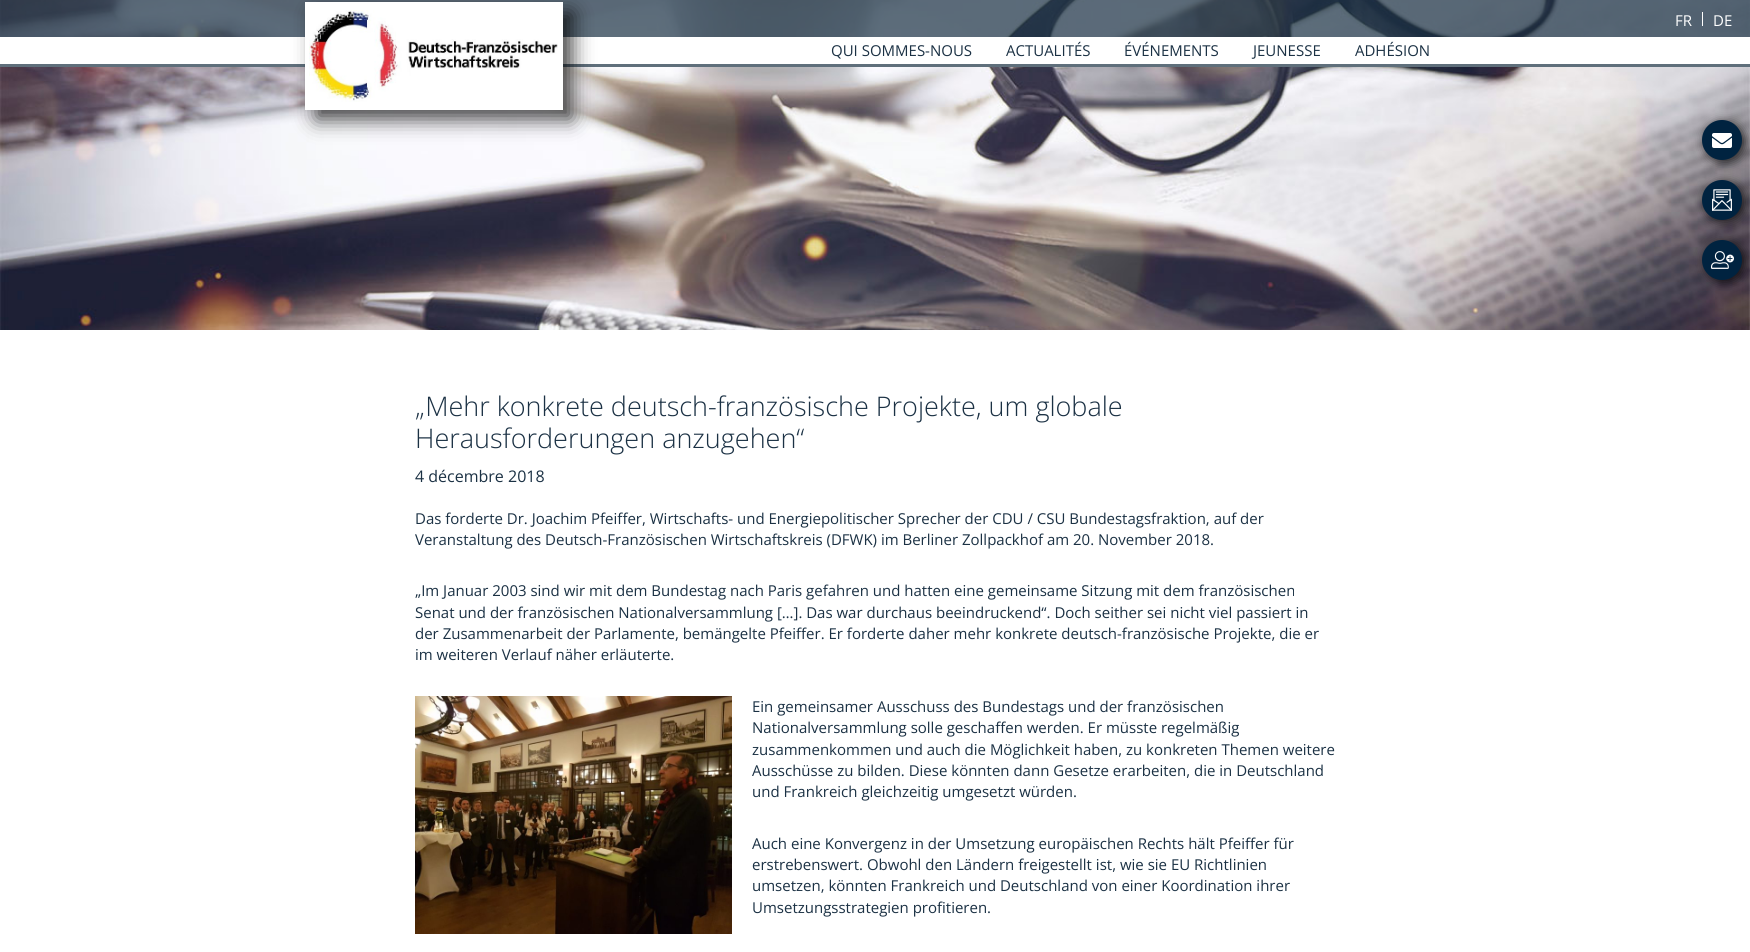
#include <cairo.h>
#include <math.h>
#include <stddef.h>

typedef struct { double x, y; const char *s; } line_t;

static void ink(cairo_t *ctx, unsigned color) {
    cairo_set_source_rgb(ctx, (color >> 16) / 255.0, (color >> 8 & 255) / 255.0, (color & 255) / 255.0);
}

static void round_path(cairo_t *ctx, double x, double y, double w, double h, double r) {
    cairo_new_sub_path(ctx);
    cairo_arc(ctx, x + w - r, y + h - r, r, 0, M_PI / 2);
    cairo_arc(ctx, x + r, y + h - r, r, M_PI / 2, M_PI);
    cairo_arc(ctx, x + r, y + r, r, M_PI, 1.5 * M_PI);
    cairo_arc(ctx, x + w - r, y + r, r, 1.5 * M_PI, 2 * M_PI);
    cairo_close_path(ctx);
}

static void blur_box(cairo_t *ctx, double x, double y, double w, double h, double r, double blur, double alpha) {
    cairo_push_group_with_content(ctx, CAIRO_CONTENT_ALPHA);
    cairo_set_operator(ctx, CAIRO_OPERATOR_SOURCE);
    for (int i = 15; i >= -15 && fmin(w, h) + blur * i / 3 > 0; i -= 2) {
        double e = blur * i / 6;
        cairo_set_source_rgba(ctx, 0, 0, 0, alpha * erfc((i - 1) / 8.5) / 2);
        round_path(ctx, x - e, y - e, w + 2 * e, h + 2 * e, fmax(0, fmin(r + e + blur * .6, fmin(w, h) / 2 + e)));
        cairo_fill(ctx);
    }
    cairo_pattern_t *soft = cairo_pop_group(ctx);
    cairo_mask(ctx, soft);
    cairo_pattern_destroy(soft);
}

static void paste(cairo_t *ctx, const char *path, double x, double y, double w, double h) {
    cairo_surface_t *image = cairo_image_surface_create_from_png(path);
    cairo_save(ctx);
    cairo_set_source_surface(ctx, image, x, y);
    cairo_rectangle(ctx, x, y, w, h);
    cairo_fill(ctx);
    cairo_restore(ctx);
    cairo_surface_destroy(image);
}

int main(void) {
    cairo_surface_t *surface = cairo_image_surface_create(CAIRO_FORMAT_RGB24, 1750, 952);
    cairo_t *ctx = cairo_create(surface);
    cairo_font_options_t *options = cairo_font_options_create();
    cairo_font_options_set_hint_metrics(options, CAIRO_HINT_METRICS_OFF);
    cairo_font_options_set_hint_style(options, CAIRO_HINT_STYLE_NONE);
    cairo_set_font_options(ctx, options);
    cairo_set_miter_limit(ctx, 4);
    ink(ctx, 0xFFFFFF);
    cairo_paint(ctx);
    paste(ctx, "media/1.png", 0, 0, 1750, 330);
    cairo_set_source_rgba(ctx, 0.106, 0.192, 0.263, 0.7);
    cairo_rectangle(ctx, 0, 0, 1750, 37);
    cairo_fill(ctx);
    ink(ctx, 0xFFFFFF);
    cairo_rectangle(ctx, 0, 37, 1750, 27);
    cairo_fill(ctx);
    ink(ctx, 0x5F6F7B);
    cairo_rectangle(ctx, 0, 64, 1750, 3);
    cairo_fill(ctx);
    ink(ctx, 0x000000);
    blur_box(ctx, 316, 13, 256, 106, 0, 10.5, 0.75);
    ink(ctx, 0xFFFFFF);
    cairo_rectangle(ctx, 305, 2, 258, 108);
    cairo_fill(ctx);
    paste(ctx, "media/2.png", 309, 10, 249, 92);
    cairo_rectangle(ctx, 1702, 12, 1, 14);
    cairo_fill(ctx);
    cairo_select_font_face(ctx, "Open Sans", CAIRO_FONT_SLANT_NORMAL, CAIRO_FONT_WEIGHT_NORMAL);
    cairo_set_font_size(ctx, 15);
    cairo_move_to(ctx, 1675, 26);
    cairo_show_text(ctx, "FR");
    cairo_move_to(ctx, 1713, 26);
    cairo_show_text(ctx, "DE");
    ink(ctx, 0x1B3144);
    {
        static const line_t items[] = {
            {831, 56, "QUI SOMMES-NOUS"},
            {1006, 56, "ACTUALITÉS"},
            {1124, 56, "ÉVÉNEMENTS"},
            {1253, 56, "JEUNESSE"},
            {1355, 56, "ADHÉSION"},
        };
        for (size_t i = 0; i < sizeof items / sizeof *items; i++) {
            cairo_move_to(ctx, items[i].x, items[i].y);
            cairo_show_text(ctx, items[i].s);
        }
    }
    ink(ctx, 0x000000);
    blur_box(ctx, 1705, 122, 40, 40, 20, 5.5, 0.75);
    ink(ctx, 0x002340);
    cairo_arc(ctx, 1722, 140, 20, 0, 2 * M_PI);
    cairo_fill(ctx);
    paste(ctx, "media/3.png", 1712, 133, 20, 15);
    ink(ctx, 0x000000);
    blur_box(ctx, 1705, 182, 40, 40, 20, 5.5, 0.75);
    ink(ctx, 0x002340);
    cairo_arc(ctx, 1722, 200, 20, 0, 2 * M_PI);
    cairo_fill(ctx);
    paste(ctx, "media/4.png", 1712, 189, 20, 22);
    ink(ctx, 0x000000);
    blur_box(ctx, 1705, 242, 40, 40, 20, 5.5, 0.75);
    ink(ctx, 0x002340);
    cairo_arc(ctx, 1722, 260, 20, 0, 2 * M_PI);
    cairo_fill(ctx);
    paste(ctx, "media/5.png", 1711, 251, 23, 18);
    cairo_select_font_face(ctx, "Open Sans Light", CAIRO_FONT_SLANT_NORMAL, CAIRO_FONT_WEIGHT_NORMAL);
    cairo_set_font_size(ctx, 27);
    ink(ctx, 0x1B3144);
    cairo_move_to(ctx, 415, 416);
    cairo_show_text(ctx, "„Mehr konkrete deutsch-französische Projekte, um globale");
    cairo_move_to(ctx, 415, 448);
    cairo_show_text(ctx, "Herausforderungen anzugehen“");
    cairo_select_font_face(ctx, "Open Sans", CAIRO_FONT_SLANT_NORMAL, CAIRO_FONT_WEIGHT_NORMAL);
    cairo_set_font_size(ctx, 16);
    cairo_move_to(ctx, 415, 482);
    cairo_show_text(ctx, "4 décembre 2018");
    cairo_set_font_size(ctx, 15);
    {
        static const line_t items[] = {
            {415, 524, "Das forderte Dr. Joachim Pfeiffer, Wirtschafts- und Energiepolitischer Sprecher der CDU / CSU Bundestagsfraktion, auf der"},
            {415, 545, "Veranstaltung des Deutsch-Französischen Wirtschaftskreis (DFWK) im Berliner Zollpackhof am 20. November 2018."},
            {415, 596, "„Im Januar 2003 sind wir mit dem Bundestag nach Paris gefahren und hatten eine gemeinsame Sitzung mit dem französischen"},
            {415, 618, "Senat und der französischen Nationalversammlung […]. Das war durchaus beeindruckend“. Doch seither sei nicht viel passiert in"},
            {415, 639, "der Zusammenarbeit der Parlamente, bemängelte Pfeiffer. Er forderte daher mehr konkrete deutsch-französische Projekte, die er"},
            {415, 660, "im weiteren Verlauf näher erläuterte."},
        };
        for (size_t i = 0; i < sizeof items / sizeof *items; i++) {
            cairo_move_to(ctx, items[i].x, items[i].y);
            cairo_show_text(ctx, items[i].s);
        }
    }
    paste(ctx, "media/6.png", 415, 696, 317, 238);
    {
        static const line_t items[] = {
            {752, 712, "Ein gemeinsamer Ausschuss des Bundestags und der französischen"},
            {752, 733, "Nationalversammlung solle geschaffen werden. Er müsste regelmäßig"},
            {752, 755, "zusammenkommen und auch die Möglichkeit haben, zu konkreten Themen weitere"},
            {752, 776, "Ausschüsse zu bilden. Diese könnten dann Gesetze erarbeiten, die in Deutschland"},
            {752, 797, "und Frankreich gleichzeitig umgesetzt würden."},
            {752, 849, "Auch eine Konvergenz in der Umsetzung europäischen Rechts hält Pfeiffer für"},
            {752, 870, "erstrebenswert. Obwohl den Ländern freigestellt ist, wie sie EU Richtlinien"},
            {752, 891, "umsetzen, könnten Frankreich und Deutschland von einer Koordination ihrer"},
            {752, 913, "Umsetzungsstrategien profitieren."},
        };
        for (size_t i = 0; i < sizeof items / sizeof *items; i++) {
            cairo_move_to(ctx, items[i].x, items[i].y);
            cairo_show_text(ctx, items[i].s);
        }
    }
    cairo_surface_write_to_png(surface, "image.png");
    cairo_font_options_destroy(options);
    cairo_destroy(ctx);
    cairo_surface_destroy(surface);
    return 0;
}
